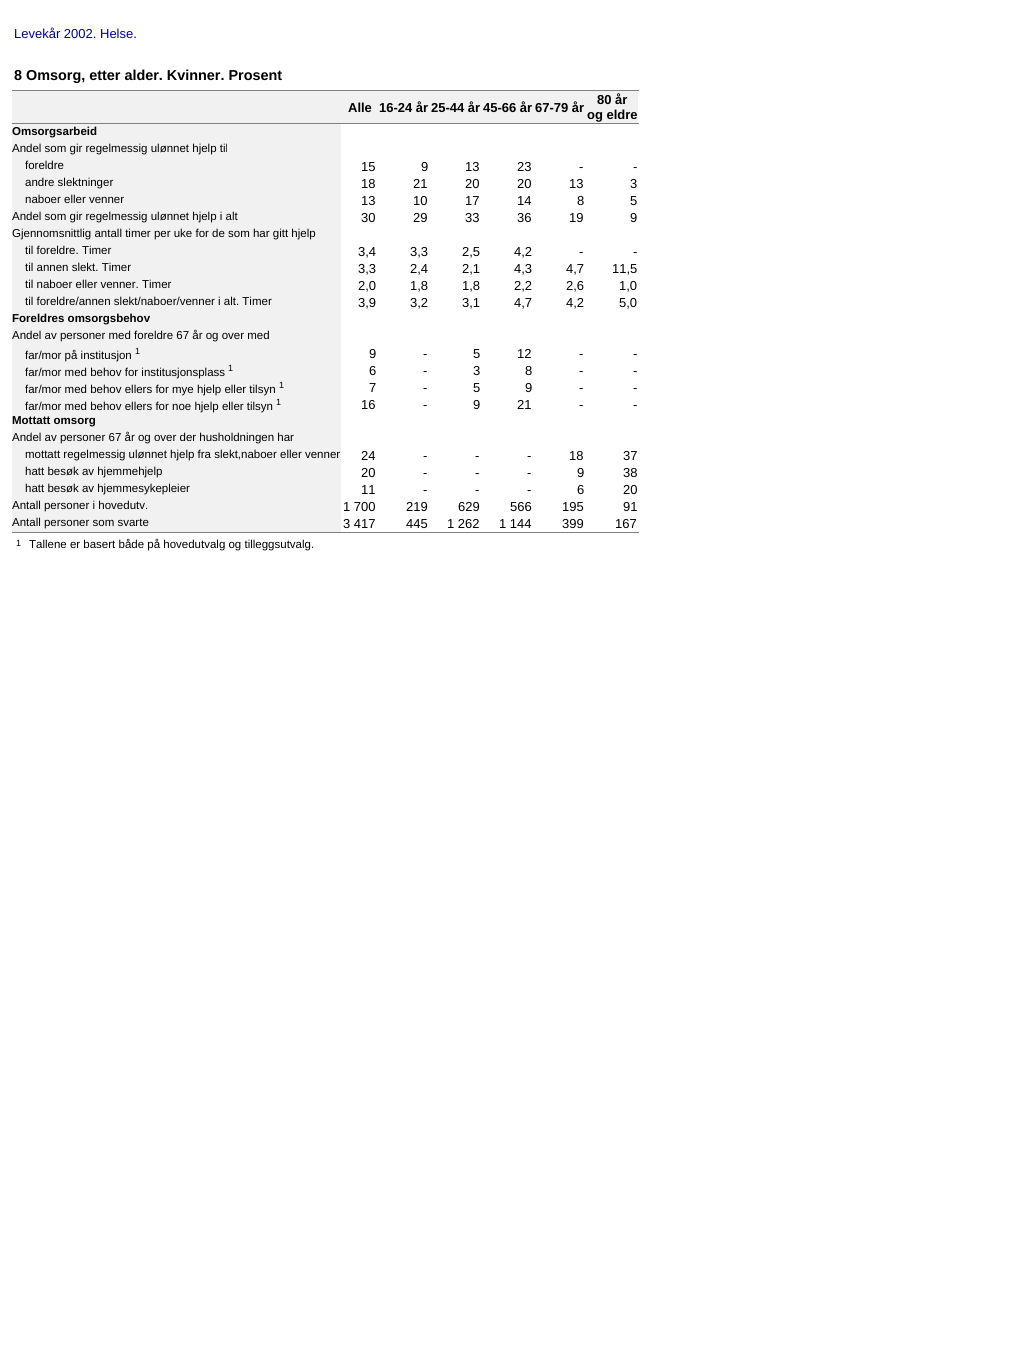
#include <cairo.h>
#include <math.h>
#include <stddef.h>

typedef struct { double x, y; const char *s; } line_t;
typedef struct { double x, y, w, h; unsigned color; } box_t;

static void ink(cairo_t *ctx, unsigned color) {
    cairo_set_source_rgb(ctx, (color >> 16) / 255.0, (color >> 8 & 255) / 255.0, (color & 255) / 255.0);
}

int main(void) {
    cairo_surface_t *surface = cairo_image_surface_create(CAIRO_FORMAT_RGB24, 1025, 1348);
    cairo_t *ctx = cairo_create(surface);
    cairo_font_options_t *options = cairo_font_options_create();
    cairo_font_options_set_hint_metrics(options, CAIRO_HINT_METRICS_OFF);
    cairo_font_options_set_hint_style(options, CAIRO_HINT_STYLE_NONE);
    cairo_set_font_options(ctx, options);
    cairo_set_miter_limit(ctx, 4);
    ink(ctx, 0xFFFFFF);
    cairo_paint(ctx);
    cairo_select_font_face(ctx, "Liberation Sans", CAIRO_FONT_SLANT_NORMAL, CAIRO_FONT_WEIGHT_NORMAL);
    cairo_set_font_size(ctx, 13);
    ink(ctx, 0x000099);
    cairo_move_to(ctx, 14, 38);
    cairo_show_text(ctx, "Levekår 2002. Helse.");
    cairo_select_font_face(ctx, "Liberation Sans", CAIRO_FONT_SLANT_NORMAL, CAIRO_FONT_WEIGHT_BOLD);
    cairo_set_font_size(ctx, 14.4);
    ink(ctx, 0x000000);
    cairo_move_to(ctx, 14, 80);
    cairo_show_text(ctx, "8 Omsorg, etter alder. Kvinner. Prosent");
    ink(ctx, 0x808080);
    cairo_rectangle(ctx, 12, 90, 627, 1);
    cairo_fill(ctx);
    ink(ctx, 0xF1F1F1);
    cairo_rectangle(ctx, 12, 91, 626, 32);
    cairo_fill(ctx);
    cairo_set_font_size(ctx, 13);
    ink(ctx, 0x000000);
    {
        static const line_t items[] = {
            {348, 112, "Alle"},
            {379, 112, "16-24 år"},
            {431, 112, "25-44 år"},
            {483, 112, "45-66 år"},
            {535, 112, "67-79 år"},
            {597, 104, "80 år"},
            {587, 119, "og eldre"},
        };
        for (size_t i = 0; i < sizeof items / sizeof *items; i++) {
            cairo_move_to(ctx, items[i].x, items[i].y);
            cairo_show_text(ctx, items[i].s);
        }
    }
    {
        static const box_t items[] = {
            {12, 123, 627, 1, 0x808080},
            {12, 532, 627, 1, 0x808080},
            {12, 124, 329, 408, 0xF1F1F1},
        };
        for (size_t i = 0; i < sizeof items / sizeof *items; i++) {
            ink(ctx, items[i].color);
            cairo_rectangle(ctx, items[i].x, items[i].y, items[i].w, items[i].h);
            cairo_fill(ctx);
        }
    }
    cairo_set_font_size(ctx, 11.5);
    ink(ctx, 0x000000);
    cairo_move_to(ctx, 12, 135);
    cairo_show_text(ctx, "Omsorgsarbeid");
    cairo_select_font_face(ctx, "Liberation Sans", CAIRO_FONT_SLANT_NORMAL, CAIRO_FONT_WEIGHT_NORMAL);
    cairo_move_to(ctx, 12, 152);
    cairo_show_text(ctx, "Andel som gir regelmessig ulønnet hjelp til");
    cairo_move_to(ctx, 25, 169);
    cairo_show_text(ctx, "foreldre");
    cairo_set_font_size(ctx, 13);
    {
        static const line_t items[] = {
            {361, 171, "15"},
            {421, 171, "9"},
            {465, 171, "13"},
            {517, 171, "23"},
            {579, 171, "-"},
            {633, 171, "-"},
        };
        for (size_t i = 0; i < sizeof items / sizeof *items; i++) {
            cairo_move_to(ctx, items[i].x, items[i].y);
            cairo_show_text(ctx, items[i].s);
        }
    }
    cairo_set_font_size(ctx, 11.5);
    cairo_move_to(ctx, 25, 186);
    cairo_show_text(ctx, "andre slektninger");
    cairo_set_font_size(ctx, 13);
    {
        static const line_t items[] = {
            {361, 188, "18"},
            {413, 188, "21"},
            {465, 188, "20"},
            {517, 188, "20"},
            {569, 188, "13"},
            {630, 188, "3"},
        };
        for (size_t i = 0; i < sizeof items / sizeof *items; i++) {
            cairo_move_to(ctx, items[i].x, items[i].y);
            cairo_show_text(ctx, items[i].s);
        }
    }
    cairo_set_font_size(ctx, 11.5);
    cairo_move_to(ctx, 25, 203);
    cairo_show_text(ctx, "naboer eller venner");
    cairo_set_font_size(ctx, 13);
    {
        static const line_t items[] = {
            {361, 205, "13"},
            {413, 205, "10"},
            {465, 205, "17"},
            {517, 205, "14"},
            {577, 205, "8"},
            {630, 205, "5"},
        };
        for (size_t i = 0; i < sizeof items / sizeof *items; i++) {
            cairo_move_to(ctx, items[i].x, items[i].y);
            cairo_show_text(ctx, items[i].s);
        }
    }
    cairo_set_font_size(ctx, 11.5);
    cairo_move_to(ctx, 12, 220);
    cairo_show_text(ctx, "Andel som gir regelmessig ulønnet hjelp i alt");
    cairo_set_font_size(ctx, 13);
    {
        static const line_t items[] = {
            {361, 222, "30"},
            {413, 222, "29"},
            {465, 222, "33"},
            {517, 222, "36"},
            {569, 222, "19"},
            {630, 222, "9"},
        };
        for (size_t i = 0; i < sizeof items / sizeof *items; i++) {
            cairo_move_to(ctx, items[i].x, items[i].y);
            cairo_show_text(ctx, items[i].s);
        }
    }
    cairo_set_font_size(ctx, 11.5);
    cairo_move_to(ctx, 12, 237);
    cairo_show_text(ctx, "Gjennomsnittlig antall timer per uke for de som har gitt hjelp");
    cairo_move_to(ctx, 25, 254);
    cairo_show_text(ctx, "til foreldre. Timer");
    cairo_set_font_size(ctx, 13);
    {
        static const line_t items[] = {
            {358, 256, "3,4"},
            {410, 256, "3,3"},
            {462, 256, "2,5"},
            {514, 256, "4,2"},
            {579, 256, "-"},
            {633, 256, "-"},
        };
        for (size_t i = 0; i < sizeof items / sizeof *items; i++) {
            cairo_move_to(ctx, items[i].x, items[i].y);
            cairo_show_text(ctx, items[i].s);
        }
    }
    cairo_set_font_size(ctx, 11.5);
    cairo_move_to(ctx, 25, 271);
    cairo_show_text(ctx, "til annen slekt. Timer");
    cairo_set_font_size(ctx, 13);
    {
        static const line_t items[] = {
            {358, 273, "3,3"},
            {410, 273, "2,4"},
            {462, 273, "2,1"},
            {514, 273, "4,3"},
            {566, 273, "4,7"},
            {612, 273, "11,5"},
        };
        for (size_t i = 0; i < sizeof items / sizeof *items; i++) {
            cairo_move_to(ctx, items[i].x, items[i].y);
            cairo_show_text(ctx, items[i].s);
        }
    }
    cairo_set_font_size(ctx, 11.5);
    cairo_move_to(ctx, 25, 288);
    cairo_show_text(ctx, "til naboer eller venner. Timer");
    cairo_set_font_size(ctx, 13);
    {
        static const line_t items[] = {
            {358, 290, "2,0"},
            {410, 290, "1,8"},
            {462, 290, "1,8"},
            {514, 290, "2,2"},
            {566, 290, "2,6"},
            {619, 290, "1,0"},
        };
        for (size_t i = 0; i < sizeof items / sizeof *items; i++) {
            cairo_move_to(ctx, items[i].x, items[i].y);
            cairo_show_text(ctx, items[i].s);
        }
    }
    cairo_set_font_size(ctx, 11.5);
    cairo_move_to(ctx, 25, 305);
    cairo_show_text(ctx, "til foreldre/annen slekt/naboer/venner i alt. Timer");
    cairo_set_font_size(ctx, 13);
    {
        static const line_t items[] = {
            {358, 307, "3,9"},
            {410, 307, "3,2"},
            {462, 307, "3,1"},
            {514, 307, "4,7"},
            {566, 307, "4,2"},
            {619, 307, "5,0"},
        };
        for (size_t i = 0; i < sizeof items / sizeof *items; i++) {
            cairo_move_to(ctx, items[i].x, items[i].y);
            cairo_show_text(ctx, items[i].s);
        }
    }
    cairo_select_font_face(ctx, "Liberation Sans", CAIRO_FONT_SLANT_NORMAL, CAIRO_FONT_WEIGHT_BOLD);
    cairo_set_font_size(ctx, 11.5);
    cairo_move_to(ctx, 12, 322);
    cairo_show_text(ctx, "Foreldres omsorgsbehov");
    cairo_select_font_face(ctx, "Liberation Sans", CAIRO_FONT_SLANT_NORMAL, CAIRO_FONT_WEIGHT_NORMAL);
    cairo_move_to(ctx, 12, 339);
    cairo_show_text(ctx, "Andel av personer med foreldre 67 år og over med");
    cairo_move_to(ctx, 25, 359);
    cairo_show_text(ctx, "far/mor på institusjon");
    cairo_set_font_size(ctx, 9);
    cairo_move_to(ctx, 135, 354);
    cairo_show_text(ctx, "1");
    cairo_set_font_size(ctx, 13);
    {
        static const line_t items[] = {
            {369, 358, "9"},
            {423, 358, "-"},
            {473, 358, "5"},
            {517, 358, "12"},
            {579, 358, "-"},
            {633, 358, "-"},
        };
        for (size_t i = 0; i < sizeof items / sizeof *items; i++) {
            cairo_move_to(ctx, items[i].x, items[i].y);
            cairo_show_text(ctx, items[i].s);
        }
    }
    cairo_set_font_size(ctx, 11.5);
    cairo_move_to(ctx, 25, 376);
    cairo_show_text(ctx, "far/mor med behov for institusjonsplass");
    cairo_set_font_size(ctx, 9);
    cairo_move_to(ctx, 228, 371);
    cairo_show_text(ctx, "1");
    cairo_set_font_size(ctx, 13);
    {
        static const line_t items[] = {
            {369, 375, "6"},
            {423, 375, "-"},
            {473, 375, "3"},
            {525, 375, "8"},
            {579, 375, "-"},
            {633, 375, "-"},
        };
        for (size_t i = 0; i < sizeof items / sizeof *items; i++) {
            cairo_move_to(ctx, items[i].x, items[i].y);
            cairo_show_text(ctx, items[i].s);
        }
    }
    cairo_set_font_size(ctx, 11.5);
    cairo_move_to(ctx, 25, 393);
    cairo_show_text(ctx, "far/mor med behov ellers for mye hjelp eller tilsyn");
    cairo_set_font_size(ctx, 9);
    cairo_move_to(ctx, 279, 388);
    cairo_show_text(ctx, "1");
    cairo_set_font_size(ctx, 13);
    {
        static const line_t items[] = {
            {369, 392, "7"},
            {423, 392, "-"},
            {473, 392, "5"},
            {525, 392, "9"},
            {579, 392, "-"},
            {633, 392, "-"},
        };
        for (size_t i = 0; i < sizeof items / sizeof *items; i++) {
            cairo_move_to(ctx, items[i].x, items[i].y);
            cairo_show_text(ctx, items[i].s);
        }
    }
    cairo_set_font_size(ctx, 11.5);
    cairo_move_to(ctx, 25, 410);
    cairo_show_text(ctx, "far/mor med behov ellers for noe hjelp eller tilsyn");
    cairo_set_font_size(ctx, 9);
    cairo_move_to(ctx, 276, 405);
    cairo_show_text(ctx, "1");
    cairo_set_font_size(ctx, 13);
    {
        static const line_t items[] = {
            {361, 409, "16"},
            {423, 409, "-"},
            {473, 409, "9"},
            {517, 409, "21"},
            {579, 409, "-"},
            {633, 409, "-"},
        };
        for (size_t i = 0; i < sizeof items / sizeof *items; i++) {
            cairo_move_to(ctx, items[i].x, items[i].y);
            cairo_show_text(ctx, items[i].s);
        }
    }
    cairo_select_font_face(ctx, "Liberation Sans", CAIRO_FONT_SLANT_NORMAL, CAIRO_FONT_WEIGHT_BOLD);
    cairo_set_font_size(ctx, 11.5);
    cairo_move_to(ctx, 12, 424);
    cairo_show_text(ctx, "Mottatt omsorg");
    cairo_select_font_face(ctx, "Liberation Sans", CAIRO_FONT_SLANT_NORMAL, CAIRO_FONT_WEIGHT_NORMAL);
    cairo_move_to(ctx, 12, 441);
    cairo_show_text(ctx, "Andel av personer 67 år og over der husholdningen har");
    cairo_move_to(ctx, 25, 458);
    cairo_show_text(ctx, "mottatt regelmessig ulønnet hjelp fra slekt,naboer eller venner");
    cairo_set_font_size(ctx, 13);
    {
        static const line_t items[] = {
            {361, 460, "24"},
            {423, 460, "-"},
            {475, 460, "-"},
            {527, 460, "-"},
            {569, 460, "18"},
            {623, 460, "37"},
        };
        for (size_t i = 0; i < sizeof items / sizeof *items; i++) {
            cairo_move_to(ctx, items[i].x, items[i].y);
            cairo_show_text(ctx, items[i].s);
        }
    }
    cairo_set_font_size(ctx, 11.5);
    cairo_move_to(ctx, 25, 475);
    cairo_show_text(ctx, "hatt besøk av hjemmehjelp");
    cairo_set_font_size(ctx, 13);
    {
        static const line_t items[] = {
            {361, 477, "20"},
            {423, 477, "-"},
            {475, 477, "-"},
            {527, 477, "-"},
            {577, 477, "9"},
            {623, 477, "38"},
        };
        for (size_t i = 0; i < sizeof items / sizeof *items; i++) {
            cairo_move_to(ctx, items[i].x, items[i].y);
            cairo_show_text(ctx, items[i].s);
        }
    }
    cairo_set_font_size(ctx, 11.5);
    cairo_move_to(ctx, 25, 492);
    cairo_show_text(ctx, "hatt besøk av hjemmesykepleier");
    cairo_set_font_size(ctx, 13);
    {
        static const line_t items[] = {
            {361, 494, "11"},
            {423, 494, "-"},
            {475, 494, "-"},
            {527, 494, "-"},
            {577, 494, "6"},
            {623, 494, "20"},
        };
        for (size_t i = 0; i < sizeof items / sizeof *items; i++) {
            cairo_move_to(ctx, items[i].x, items[i].y);
            cairo_show_text(ctx, items[i].s);
        }
    }
    cairo_set_font_size(ctx, 11.5);
    cairo_move_to(ctx, 12, 509);
    cairo_show_text(ctx, "Antall personer i hovedutv.");
    cairo_set_font_size(ctx, 13);
    {
        static const line_t items[] = {
            {343, 511, "1 700"},
            {406, 511, "219"},
            {458, 511, "629"},
            {510, 511, "566"},
            {562, 511, "195"},
            {623, 511, "91"},
        };
        for (size_t i = 0; i < sizeof items / sizeof *items; i++) {
            cairo_move_to(ctx, items[i].x, items[i].y);
            cairo_show_text(ctx, items[i].s);
        }
    }
    cairo_set_font_size(ctx, 11.5);
    cairo_move_to(ctx, 12, 526);
    cairo_show_text(ctx, "Antall personer som svarte");
    cairo_set_font_size(ctx, 13);
    {
        static const line_t items[] = {
            {343, 528, "3 417"},
            {406, 528, "445"},
            {447, 528, "1 262"},
            {499, 528, "1 144"},
            {562, 528, "399"},
            {615, 528, "167"},
        };
        for (size_t i = 0; i < sizeof items / sizeof *items; i++) {
            cairo_move_to(ctx, items[i].x, items[i].y);
            cairo_show_text(ctx, items[i].s);
        }
    }
    cairo_set_font_size(ctx, 9);
    cairo_move_to(ctx, 16, 546);
    cairo_show_text(ctx, "1");
    cairo_set_font_size(ctx, 11.5);
    cairo_move_to(ctx, 29, 548);
    cairo_show_text(ctx, "Tallene er basert både på hovedutvalg og tilleggsutvalg.");
    cairo_surface_write_to_png(surface, "image.png");
    cairo_font_options_destroy(options);
    cairo_destroy(ctx);
    cairo_surface_destroy(surface);
    return 0;
}
